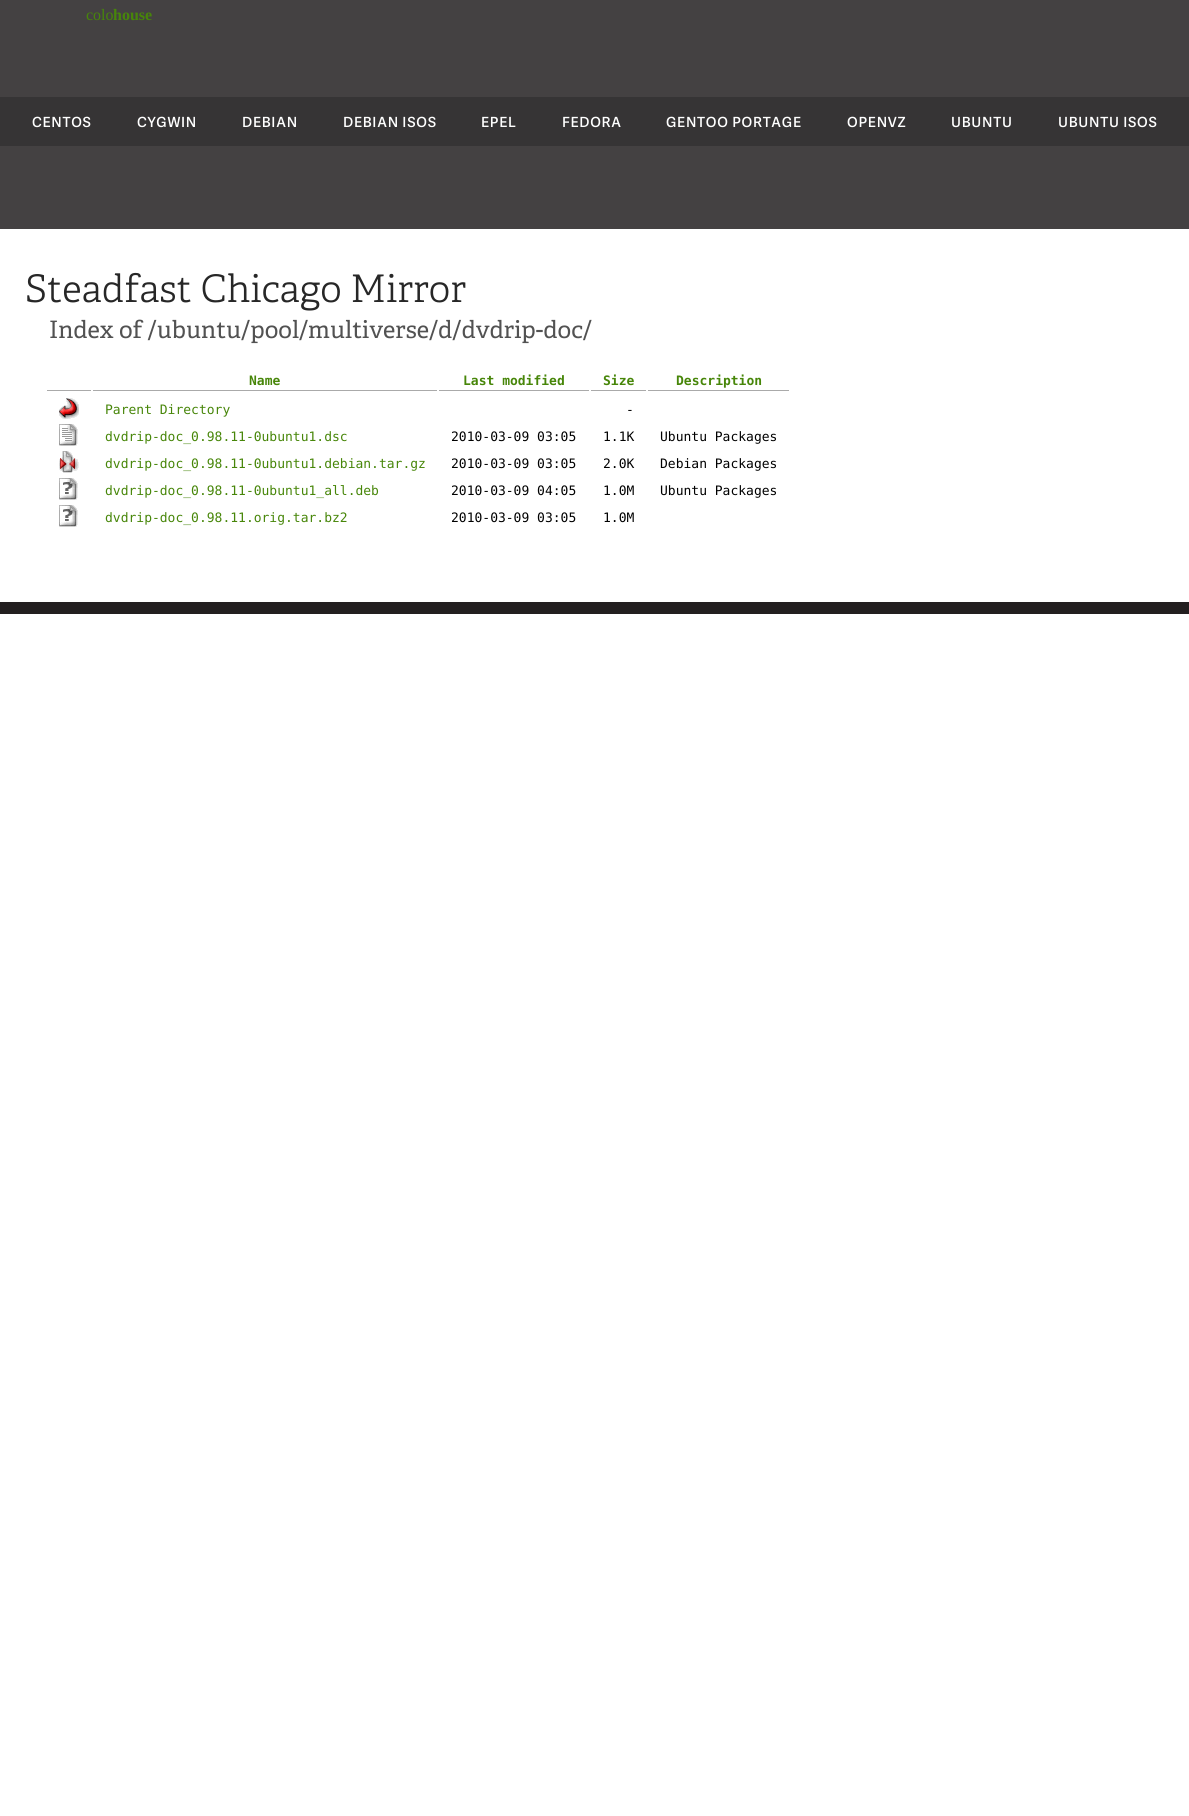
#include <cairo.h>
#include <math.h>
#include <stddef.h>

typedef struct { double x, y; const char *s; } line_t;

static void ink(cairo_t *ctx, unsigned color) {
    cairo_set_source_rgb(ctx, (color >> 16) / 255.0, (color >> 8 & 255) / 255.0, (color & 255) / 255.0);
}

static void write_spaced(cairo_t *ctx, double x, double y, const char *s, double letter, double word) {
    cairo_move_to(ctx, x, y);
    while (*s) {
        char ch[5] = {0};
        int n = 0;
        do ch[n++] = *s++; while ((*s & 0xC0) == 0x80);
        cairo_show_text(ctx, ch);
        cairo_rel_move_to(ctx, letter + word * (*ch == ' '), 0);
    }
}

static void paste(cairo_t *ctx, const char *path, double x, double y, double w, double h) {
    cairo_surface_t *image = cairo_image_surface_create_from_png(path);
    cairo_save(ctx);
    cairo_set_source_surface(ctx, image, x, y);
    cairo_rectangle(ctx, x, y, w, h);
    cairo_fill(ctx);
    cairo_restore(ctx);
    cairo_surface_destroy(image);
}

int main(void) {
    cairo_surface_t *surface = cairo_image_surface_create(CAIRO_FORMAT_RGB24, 1189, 1816);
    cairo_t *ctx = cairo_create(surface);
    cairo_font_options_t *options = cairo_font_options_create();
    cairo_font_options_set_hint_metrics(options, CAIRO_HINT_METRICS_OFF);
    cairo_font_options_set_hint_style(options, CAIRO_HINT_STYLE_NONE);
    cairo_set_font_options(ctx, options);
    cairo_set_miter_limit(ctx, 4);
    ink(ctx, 0xFFFFFF);
    cairo_paint(ctx);
    ink(ctx, 0x444142);
    cairo_rectangle(ctx, 0, 0, 1189, 229);
    cairo_fill(ctx);
    cairo_select_font_face(ctx, "Liberation Serif", CAIRO_FONT_SLANT_NORMAL, CAIRO_FONT_WEIGHT_NORMAL);
    cairo_set_font_size(ctx, 16);
    ink(ctx, 0x478609);
    cairo_move_to(ctx, 86, 20);
    cairo_show_text(ctx, "colo");
    cairo_select_font_face(ctx, "Liberation Serif", CAIRO_FONT_SLANT_NORMAL, CAIRO_FONT_WEIGHT_BOLD);
    cairo_move_to(ctx, 113, 20);
    cairo_show_text(ctx, "house");
    ink(ctx, 0x363435);
    cairo_rectangle(ctx, 0, 97, 1189, 49);
    cairo_fill(ctx);
    cairo_select_font_face(ctx, "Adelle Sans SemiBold", CAIRO_FONT_SLANT_NORMAL, CAIRO_FONT_WEIGHT_NORMAL);
    cairo_set_font_size(ctx, 14);
    ink(ctx, 0xFFFFFF);
    {
        static const line_t items[] = {
            {32, 127, "CENTOS"},
            {137, 127, "CYGWIN"},
            {242, 127, "DEBIAN"},
            {343, 127, "DEBIAN ISOS"},
            {481, 127, "EPEL"},
            {562, 127, "FEDORA"},
            {666, 127, "GENTOO PORTAGE"},
            {847, 127, "OPENVZ"},
            {951, 127, "UBUNTU"},
            {1058, 127, "UBUNTU ISOS"},
        };
        for (size_t i = 0; i < sizeof items / sizeof *items; i++) {
            write_spaced(ctx, items[i].x, items[i].y, items[i].s, 0.75, 0);
        }
    }
    cairo_select_font_face(ctx, "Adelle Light", CAIRO_FONT_SLANT_NORMAL, CAIRO_FONT_WEIGHT_NORMAL);
    cairo_set_font_size(ctx, 38);
    ink(ctx, 0x272727);
    cairo_move_to(ctx, 25, 302);
    cairo_show_text(ctx, "Steadfast Chicago Mirror");
    cairo_select_font_face(ctx, "Adelle", CAIRO_FONT_SLANT_NORMAL, CAIRO_FONT_WEIGHT_NORMAL);
    cairo_set_font_size(ctx, 24);
    ink(ctx, 0x525252);
    cairo_move_to(ctx, 49, 338);
    cairo_show_text(ctx, "Index of /ubuntu/pool/multiverse/d/dvdrip-doc/");
    ink(ctx, 0xAAAAAA);
    cairo_rectangle(ctx, 93, 390, 344, 1);
    cairo_fill(ctx);
    cairo_select_font_face(ctx, "DejaVu Sans Mono", CAIRO_FONT_SLANT_NORMAL, CAIRO_FONT_WEIGHT_BOLD);
    cairo_set_font_size(ctx, 13);
    ink(ctx, 0x478609);
    cairo_move_to(ctx, 249, 385);
    cairo_show_text(ctx, "Name");
    ink(ctx, 0xAAAAAA);
    cairo_rectangle(ctx, 439, 390, 150, 1);
    cairo_fill(ctx);
    ink(ctx, 0x478609);
    cairo_move_to(ctx, 463, 385);
    cairo_show_text(ctx, "Last modified");
    ink(ctx, 0xAAAAAA);
    cairo_rectangle(ctx, 591, 390, 55, 1);
    cairo_fill(ctx);
    ink(ctx, 0x478609);
    cairo_move_to(ctx, 603, 385);
    cairo_show_text(ctx, "Size");
    ink(ctx, 0xAAAAAA);
    cairo_rectangle(ctx, 648, 390, 141, 1);
    cairo_fill(ctx);
    ink(ctx, 0x478609);
    cairo_move_to(ctx, 676, 385);
    cairo_show_text(ctx, "Description");
    ink(ctx, 0xAAAAAA);
    cairo_rectangle(ctx, 47, 390, 44, 1);
    cairo_fill(ctx);
    paste(ctx, "media/1.png", 59, 398, 20, 21);
    cairo_select_font_face(ctx, "DejaVu Sans Mono", CAIRO_FONT_SLANT_NORMAL, CAIRO_FONT_WEIGHT_NORMAL);
    ink(ctx, 0x478609);
    cairo_move_to(ctx, 105, 414);
    cairo_show_text(ctx, "Parent Directory");
    ink(ctx, 0x000000);
    cairo_move_to(ctx, 626, 414);
    cairo_show_text(ctx, "-");
    paste(ctx, "media/2.png", 59, 424, 19, 22);
    ink(ctx, 0x478609);
    cairo_move_to(ctx, 105, 441);
    cairo_show_text(ctx, "dvdrip-doc_0.98.11-0ubuntu1.dsc");
    ink(ctx, 0x000000);
    {
        static const line_t items[] = {
            {451, 441, "2010-03-09 03:05"},
            {603, 441, "1.1K"},
            {660, 441, "Ubuntu Packages"},
        };
        for (size_t i = 0; i < sizeof items / sizeof *items; i++) {
            cairo_move_to(ctx, items[i].x, items[i].y);
            cairo_show_text(ctx, items[i].s);
        }
    }
    paste(ctx, "media/3.png", 59, 451, 20, 22);
    ink(ctx, 0x478609);
    cairo_move_to(ctx, 105, 468);
    cairo_show_text(ctx, "dvdrip-doc_0.98.11-0ubuntu1.debian.tar.gz");
    ink(ctx, 0x000000);
    {
        static const line_t items[] = {
            {451, 468, "2010-03-09 03:05"},
            {603, 468, "2.0K"},
            {660, 468, "Debian Packages"},
        };
        for (size_t i = 0; i < sizeof items / sizeof *items; i++) {
            cairo_move_to(ctx, items[i].x, items[i].y);
            cairo_show_text(ctx, items[i].s);
        }
    }
    paste(ctx, "media/4.png", 59, 478, 19, 22);
    ink(ctx, 0x478609);
    cairo_move_to(ctx, 105, 495);
    cairo_show_text(ctx, "dvdrip-doc_0.98.11-0ubuntu1_all.deb");
    ink(ctx, 0x000000);
    {
        static const line_t items[] = {
            {451, 495, "2010-03-09 04:05"},
            {603, 495, "1.0M"},
            {660, 495, "Ubuntu Packages"},
        };
        for (size_t i = 0; i < sizeof items / sizeof *items; i++) {
            cairo_move_to(ctx, items[i].x, items[i].y);
            cairo_show_text(ctx, items[i].s);
        }
    }
    paste(ctx, "media/4.png", 59, 505, 19, 22);
    ink(ctx, 0x478609);
    cairo_move_to(ctx, 105, 522);
    cairo_show_text(ctx, "dvdrip-doc_0.98.11.orig.tar.bz2");
    ink(ctx, 0x000000);
    cairo_move_to(ctx, 451, 522);
    cairo_show_text(ctx, "2010-03-09 03:05");
    cairo_move_to(ctx, 603, 522);
    cairo_show_text(ctx, "1.0M");
    ink(ctx, 0x231F20);
    cairo_rectangle(ctx, 0, 602, 1189, 12);
    cairo_fill(ctx);
    cairo_surface_write_to_png(surface, "image.png");
    cairo_font_options_destroy(options);
    cairo_destroy(ctx);
    cairo_surface_destroy(surface);
    return 0;
}
